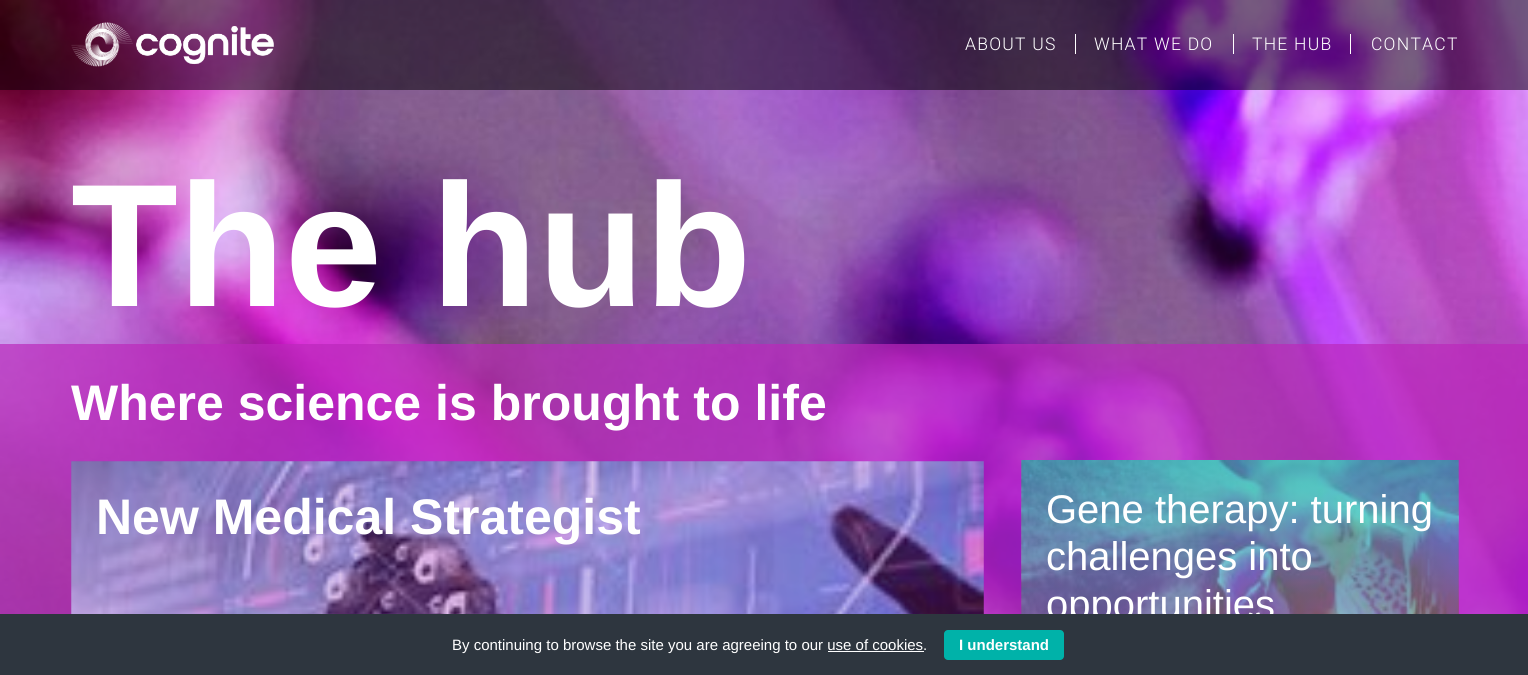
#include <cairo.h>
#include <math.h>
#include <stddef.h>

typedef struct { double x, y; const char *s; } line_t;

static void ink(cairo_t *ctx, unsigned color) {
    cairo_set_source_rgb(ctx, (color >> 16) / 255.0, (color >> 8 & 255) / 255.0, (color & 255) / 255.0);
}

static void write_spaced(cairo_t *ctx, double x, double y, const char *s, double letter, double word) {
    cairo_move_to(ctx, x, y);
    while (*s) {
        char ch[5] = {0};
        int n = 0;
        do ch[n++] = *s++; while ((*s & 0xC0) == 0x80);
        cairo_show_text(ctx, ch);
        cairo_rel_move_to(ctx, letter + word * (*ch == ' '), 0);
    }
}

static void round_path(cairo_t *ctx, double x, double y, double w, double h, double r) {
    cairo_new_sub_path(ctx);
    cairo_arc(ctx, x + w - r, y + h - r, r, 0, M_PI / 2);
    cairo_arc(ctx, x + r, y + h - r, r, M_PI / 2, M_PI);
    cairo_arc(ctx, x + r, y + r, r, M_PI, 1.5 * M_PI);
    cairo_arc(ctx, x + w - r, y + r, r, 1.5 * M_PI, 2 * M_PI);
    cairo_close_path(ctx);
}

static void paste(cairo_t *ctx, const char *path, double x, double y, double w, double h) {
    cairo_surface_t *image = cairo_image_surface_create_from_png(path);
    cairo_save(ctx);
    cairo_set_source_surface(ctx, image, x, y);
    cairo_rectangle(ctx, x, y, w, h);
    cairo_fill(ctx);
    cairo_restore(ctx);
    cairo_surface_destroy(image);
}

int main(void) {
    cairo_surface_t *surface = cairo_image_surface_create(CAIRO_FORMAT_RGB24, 1528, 675);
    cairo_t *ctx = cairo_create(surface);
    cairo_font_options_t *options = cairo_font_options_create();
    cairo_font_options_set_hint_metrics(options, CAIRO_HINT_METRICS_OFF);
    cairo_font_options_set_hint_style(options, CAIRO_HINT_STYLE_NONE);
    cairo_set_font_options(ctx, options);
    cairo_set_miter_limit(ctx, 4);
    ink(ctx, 0xFFFFFF);
    cairo_paint(ctx);
    paste(ctx, "media/2.png", 0, 0, 1528, 614);
    cairo_set_source_rgba(ctx, 0, 0, 0, 0.5);
    cairo_rectangle(ctx, 0, 0, 1528, 90);
    cairo_fill(ctx);
    paste(ctx, "media/1.png", 71, 22, 203, 45);
    cairo_select_font_face(ctx, "Roboto Light", CAIRO_FONT_SLANT_NORMAL, CAIRO_FONT_WEIGHT_NORMAL);
    cairo_set_font_size(ctx, 17.5);
    ink(ctx, 0xFFFFFF);
    write_spaced(ctx, 965, 50, "ABOUT US", 1.25, 0);
    write_spaced(ctx, 1094, 50, "WHAT WE DO", 1.25, 0);
    cairo_rectangle(ctx, 1075, 34, 1, 20);
    cairo_fill(ctx);
    write_spaced(ctx, 1252, 50, "THE HUB", 1.25, 0);
    cairo_rectangle(ctx, 1233, 34, 1, 20);
    cairo_fill(ctx);
    write_spaced(ctx, 1371, 50, "CONTACT", 1.25, 0);
    cairo_rectangle(ctx, 1350, 34, 1, 20);
    cairo_fill(ctx);
    cairo_select_font_face(ctx, "Liberation Sans", CAIRO_FONT_SLANT_NORMAL, CAIRO_FONT_WEIGHT_BOLD);
    cairo_set_font_size(ctx, 175);
    cairo_move_to(ctx, 71, 306);
    cairo_show_text(ctx, "The hub");
    cairo_set_source_rgba(ctx, 0.733, 0.161, 0.733, 0.7);
    cairo_rectangle(ctx, 0, 344, 1528, 270);
    cairo_fill(ctx);
    cairo_set_font_size(ctx, 50);
    ink(ctx, 0xFFFFFF);
    cairo_move_to(ctx, 71, 420);
    cairo_show_text(ctx, "Where science is brought to life");
    paste(ctx, "media/3.png", 71, 461, 913, 153);
    cairo_set_source_rgba(ctx, 0.655, 0.161, 0.733, 0.3);
    cairo_rectangle(ctx, 71, 461, 913, 153);
    cairo_fill(ctx);
    ink(ctx, 0xFFFFFF);
    cairo_move_to(ctx, 96, 534);
    cairo_show_text(ctx, "New Medical Strategist");
    paste(ctx, "media/4.png", 1021, 460, 438, 154);
    cairo_select_font_face(ctx, "Liberation Sans", CAIRO_FONT_SLANT_NORMAL, CAIRO_FONT_WEIGHT_NORMAL);
    cairo_set_font_size(ctx, 40);
    {
        static const line_t items[] = {
            {1046, 523, "Gene therapy: turning"},
            {1046, 570, "challenges into"},
            {1046, 618, "opportunities"},
        };
        for (size_t i = 0; i < sizeof items / sizeof *items; i++) {
            cairo_move_to(ctx, items[i].x, items[i].y);
            cairo_show_text(ctx, items[i].s);
        }
    }
    ink(ctx, 0x2E363F);
    cairo_rectangle(ctx, 0, 614, 1528, 61);
    cairo_fill(ctx);
    cairo_set_font_size(ctx, 15);
    ink(ctx, 0xFFFFFF);
    cairo_move_to(ctx, 452, 650);
    cairo_show_text(ctx, "By continuing to browse the site you are agreeing to our use of cookies.");
    ink(ctx, 0x00B2A9);
    round_path(ctx, 944, 630, 120, 30, 4);
    cairo_fill(ctx);
    cairo_select_font_face(ctx, "Liberation Sans", CAIRO_FONT_SLANT_NORMAL, CAIRO_FONT_WEIGHT_BOLD);
    ink(ctx, 0xFFFFFF);
    cairo_move_to(ctx, 959, 650);
    cairo_show_text(ctx, "I understand");
    cairo_rectangle(ctx, 828, 651, 96, 1);
    cairo_fill(ctx);
    cairo_surface_write_to_png(surface, "image.png");
    cairo_font_options_destroy(options);
    cairo_destroy(ctx);
    cairo_surface_destroy(surface);
    return 0;
}
